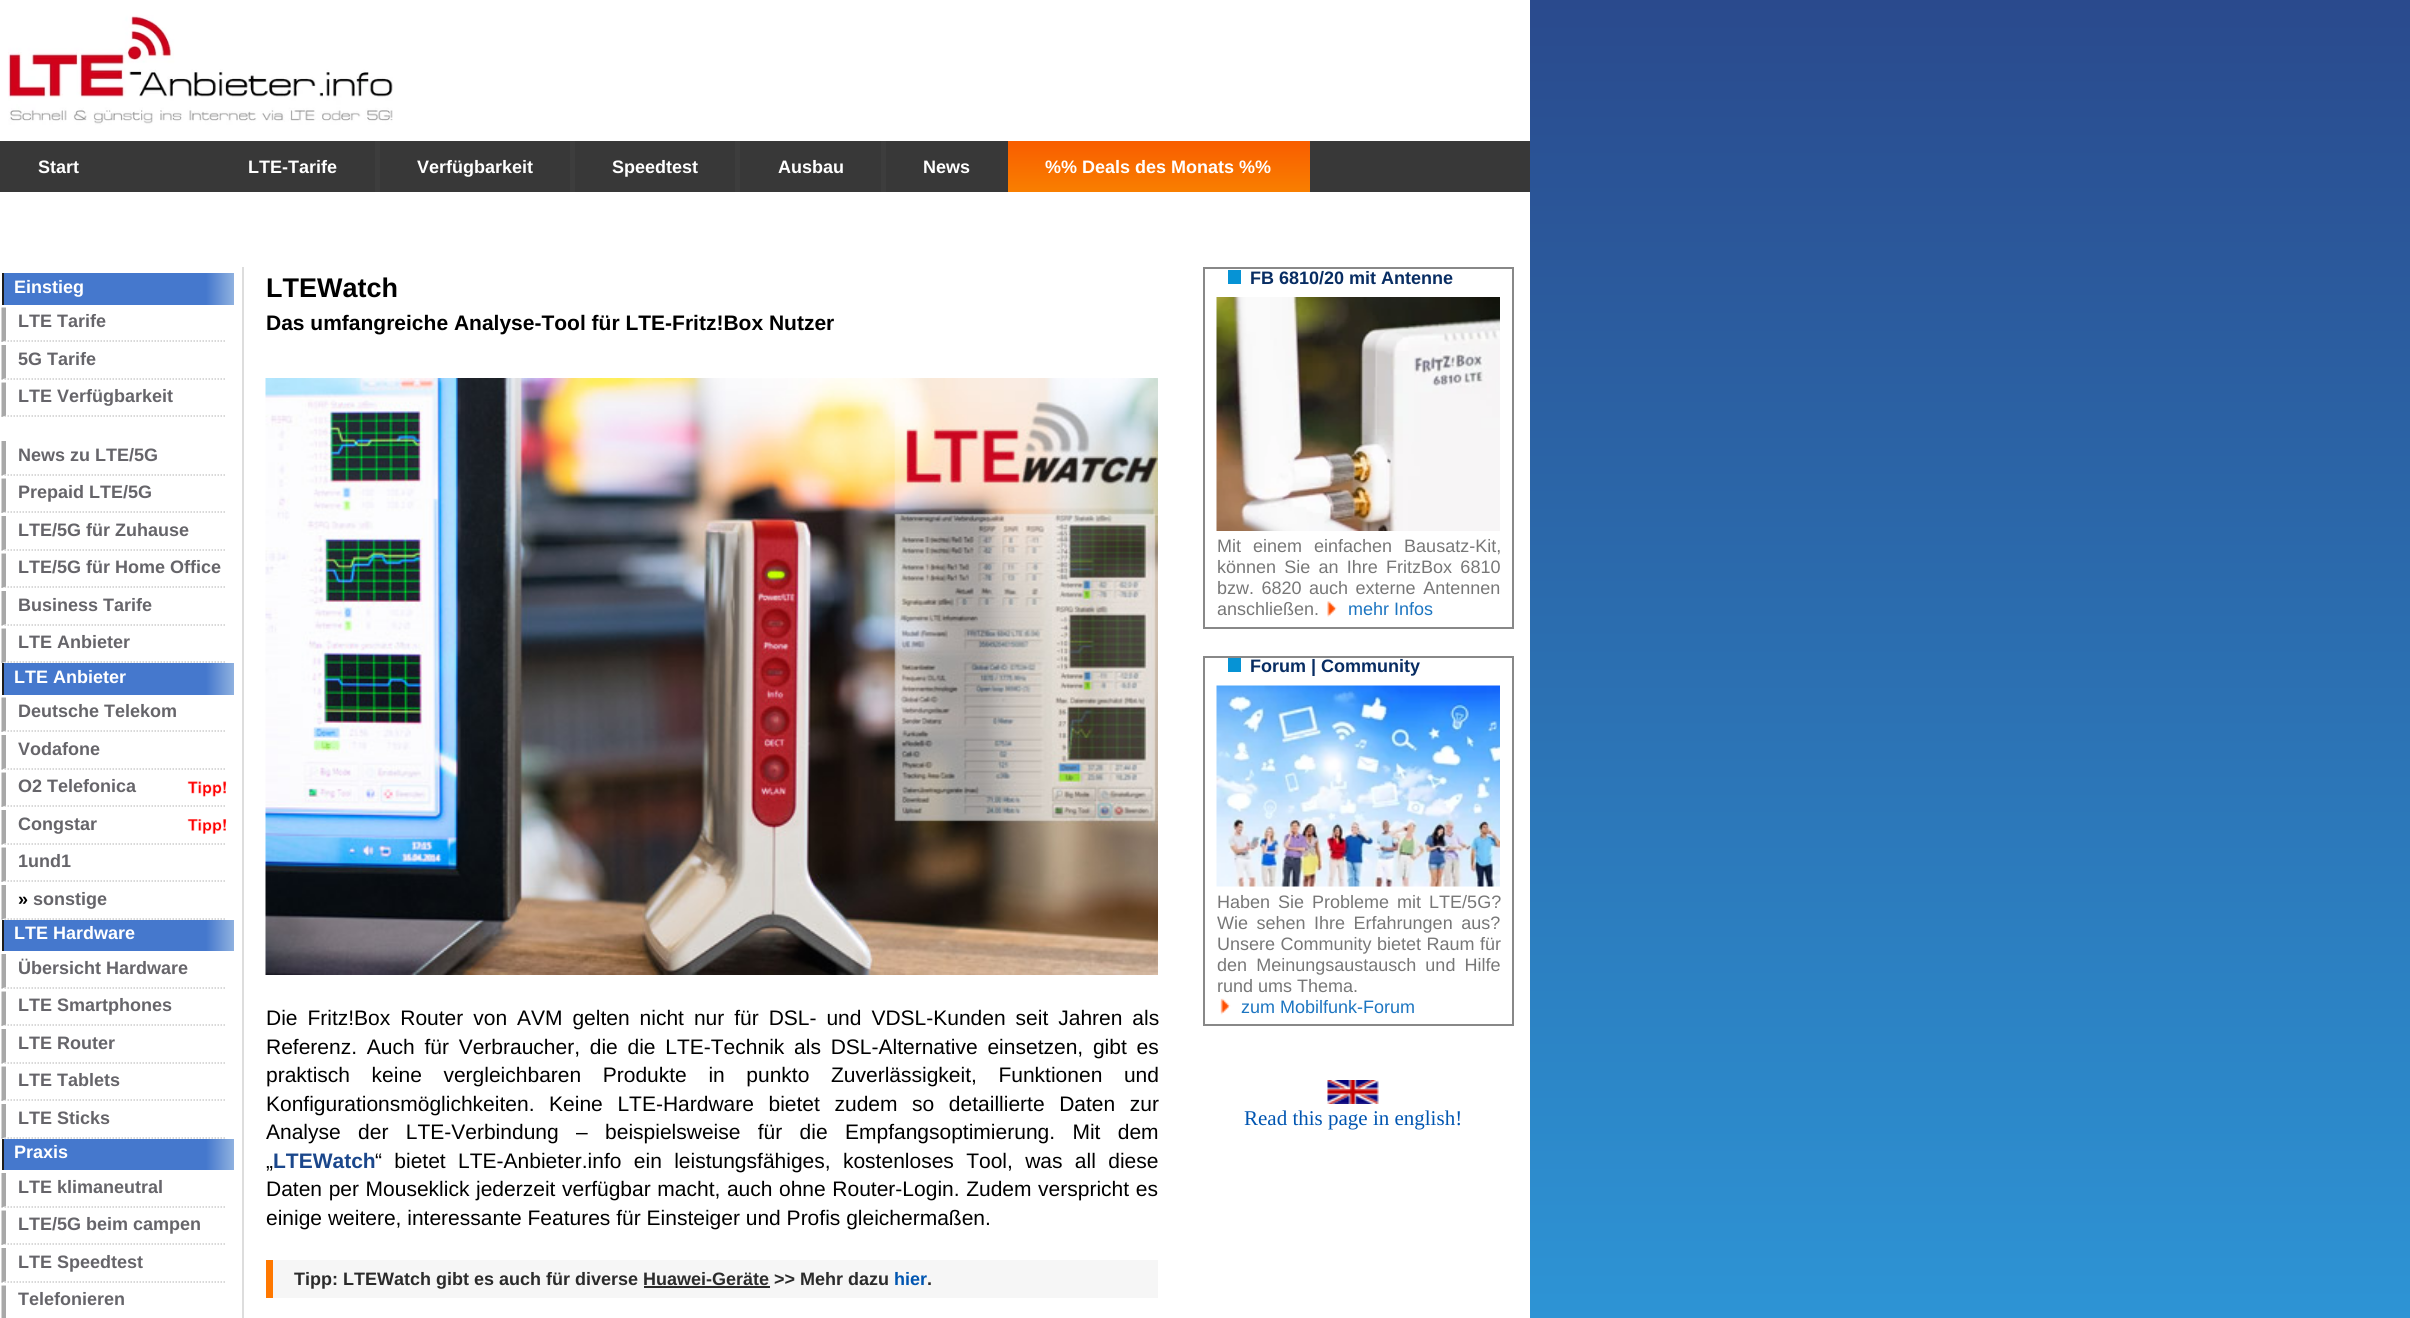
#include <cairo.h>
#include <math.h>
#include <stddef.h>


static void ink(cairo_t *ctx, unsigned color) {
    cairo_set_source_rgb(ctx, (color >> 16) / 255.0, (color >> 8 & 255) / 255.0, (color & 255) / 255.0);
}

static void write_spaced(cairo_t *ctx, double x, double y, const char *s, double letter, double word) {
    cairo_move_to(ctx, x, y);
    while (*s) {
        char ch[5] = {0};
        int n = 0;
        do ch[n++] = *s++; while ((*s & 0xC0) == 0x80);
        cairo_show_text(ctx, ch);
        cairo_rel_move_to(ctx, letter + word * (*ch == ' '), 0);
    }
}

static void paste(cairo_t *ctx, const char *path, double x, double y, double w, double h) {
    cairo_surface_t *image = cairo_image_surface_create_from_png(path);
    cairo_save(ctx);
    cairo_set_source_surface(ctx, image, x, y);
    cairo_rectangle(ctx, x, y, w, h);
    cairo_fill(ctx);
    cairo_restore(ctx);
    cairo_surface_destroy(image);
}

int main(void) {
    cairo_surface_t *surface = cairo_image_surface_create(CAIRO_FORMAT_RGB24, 2410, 1318);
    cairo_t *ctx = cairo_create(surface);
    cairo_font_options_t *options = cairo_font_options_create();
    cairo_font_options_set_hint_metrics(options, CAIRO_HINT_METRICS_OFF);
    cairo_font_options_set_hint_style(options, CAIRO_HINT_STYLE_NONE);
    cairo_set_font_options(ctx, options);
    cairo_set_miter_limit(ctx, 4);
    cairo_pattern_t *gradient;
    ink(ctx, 0xFFFFFF);
    cairo_paint(ctx);
    gradient = cairo_pattern_create_linear(1205, 0, 1205, 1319);
    cairo_pattern_add_color_stop_rgba(gradient, 0, 0.165, 0.29, 0.553, 1);
    cairo_pattern_add_color_stop_rgba(gradient, 1, 0.176, 0.58, 0.835, 1);
    cairo_set_source(ctx, gradient);
    cairo_pattern_destroy(gradient);
    cairo_rectangle(ctx, 1530, 0, 880, 1318);
    cairo_fill(ctx);
    paste(ctx, "media/1.png", 8, 15, 385, 110);
    ink(ctx, 0x383838);
    cairo_rectangle(ctx, 0, 141, 1530, 51);
    cairo_fill(ctx);
    cairo_select_font_face(ctx, "Liberation Sans", CAIRO_FONT_SLANT_NORMAL, CAIRO_FONT_WEIGHT_BOLD);
    cairo_set_font_size(ctx, 18);
    ink(ctx, 0xFFFFFF);
    cairo_move_to(ctx, 38, 173);
    cairo_show_text(ctx, "Start");
    cairo_move_to(ctx, 248, 173);
    cairo_show_text(ctx, "LTE-Tarife");
    ink(ctx, 0x3D3D3D);
    cairo_rectangle(ctx, 375, 141, 5, 51);
    cairo_fill(ctx);
    ink(ctx, 0xFFFFFF);
    cairo_move_to(ctx, 417, 173);
    cairo_show_text(ctx, "Verfügbarkeit");
    ink(ctx, 0x3D3D3D);
    cairo_rectangle(ctx, 570, 141, 5, 51);
    cairo_fill(ctx);
    ink(ctx, 0xFFFFFF);
    cairo_move_to(ctx, 612, 173);
    cairo_show_text(ctx, "Speedtest");
    ink(ctx, 0x3D3D3D);
    cairo_rectangle(ctx, 735, 141, 5, 51);
    cairo_fill(ctx);
    ink(ctx, 0xFFFFFF);
    cairo_move_to(ctx, 778, 173);
    cairo_show_text(ctx, "Ausbau");
    ink(ctx, 0x3D3D3D);
    cairo_rectangle(ctx, 881, 141, 5, 51);
    cairo_fill(ctx);
    ink(ctx, 0xFFFFFF);
    cairo_move_to(ctx, 923, 173);
    cairo_show_text(ctx, "News");
    gradient = cairo_pattern_create_linear(1159, 141, 1159, 192);
    cairo_pattern_add_color_stop_rgba(gradient, 0, 0.976, 0.365, 0, 1);
    cairo_pattern_add_color_stop_rgba(gradient, 1, 0.976, 0.498, 0, 1);
    cairo_set_source(ctx, gradient);
    cairo_pattern_destroy(gradient);
    cairo_rectangle(ctx, 1008, 141, 302, 51);
    cairo_fill(ctx);
    ink(ctx, 0xFFFFFF);
    cairo_move_to(ctx, 1045, 173);
    cairo_show_text(ctx, "%% Deals des Monats %%");
    gradient = cairo_pattern_create_linear(1.5, 289, 234, 289);
    cairo_pattern_add_color_stop_rgba(gradient, 0, 0.114, 0.114, 0.114, 1);
    cairo_pattern_add_color_stop_rgba(gradient, 0.01, 0.114, 0.114, 0.114, 1);
    cairo_pattern_add_color_stop_rgba(gradient, 0.01, 0.271, 0.471, 0.804, 1);
    cairo_pattern_add_color_stop_rgba(gradient, 0.88, 0.271, 0.471, 0.804, 1);
    cairo_pattern_add_color_stop_rgba(gradient, 1, 0.561, 0.694, 0.878, 1);
    cairo_set_source(ctx, gradient);
    cairo_pattern_destroy(gradient);
    cairo_rectangle(ctx, 2, 273, 232, 32);
    cairo_fill(ctx);
    ink(ctx, 0xFFFFFF);
    cairo_move_to(ctx, 14, 293);
    cairo_show_text(ctx, "Einstieg");
    cairo_new_path(ctx);
    cairo_move_to(ctx, 1.5, 341);
    cairo_line_to(ctx, 226.5, 341);
    ink(ctx, 0xCCCCCC);
    cairo_set_line_width(ctx, 1.5);
    cairo_set_dash(ctx, (double[]){1.5, 1.5}, 2, 0);
    cairo_stroke(ctx);
    ink(ctx, 0xA8A8A8);
    cairo_new_path(ctx);
    cairo_move_to(ctx, 1.5, 342);
    cairo_line_to(ctx, 1.5, 307.5);
    cairo_line_to(ctx, 6, 307.5);
    cairo_line_to(ctx, 6, 340.5);
    cairo_close_path(ctx);
    cairo_fill(ctx);
    ink(ctx, 0x66656A);
    cairo_move_to(ctx, 18, 327);
    cairo_show_text(ctx, "LTE Tarife");
    cairo_new_path(ctx);
    cairo_move_to(ctx, 1.5, 379);
    cairo_line_to(ctx, 226.5, 379);
    ink(ctx, 0xCCCCCC);
    cairo_stroke(ctx);
    ink(ctx, 0xA8A8A8);
    cairo_new_path(ctx);
    cairo_move_to(ctx, 1.5, 379.5);
    cairo_line_to(ctx, 1.5, 345);
    cairo_line_to(ctx, 6, 345);
    cairo_line_to(ctx, 6, 378);
    cairo_close_path(ctx);
    cairo_fill(ctx);
    ink(ctx, 0x66656A);
    cairo_move_to(ctx, 18, 365);
    cairo_show_text(ctx, "5G Tarife");
    cairo_new_path(ctx);
    cairo_move_to(ctx, 1.5, 416);
    cairo_line_to(ctx, 226.5, 416);
    ink(ctx, 0xCCCCCC);
    cairo_stroke(ctx);
    ink(ctx, 0xA8A8A8);
    cairo_new_path(ctx);
    cairo_move_to(ctx, 1.5, 417);
    cairo_line_to(ctx, 1.5, 382.5);
    cairo_line_to(ctx, 6, 382.5);
    cairo_line_to(ctx, 6, 415.5);
    cairo_close_path(ctx);
    cairo_fill(ctx);
    ink(ctx, 0x66656A);
    cairo_move_to(ctx, 18, 402);
    cairo_show_text(ctx, "LTE Verfügbarkeit");
    cairo_new_path(ctx);
    cairo_move_to(ctx, 1.5, 475);
    cairo_line_to(ctx, 226.5, 475);
    ink(ctx, 0xCCCCCC);
    cairo_stroke(ctx);
    ink(ctx, 0xA8A8A8);
    cairo_new_path(ctx);
    cairo_move_to(ctx, 1.5, 475.5);
    cairo_line_to(ctx, 1.5, 441);
    cairo_line_to(ctx, 6, 441);
    cairo_line_to(ctx, 6, 474);
    cairo_close_path(ctx);
    cairo_fill(ctx);
    ink(ctx, 0x66656A);
    cairo_move_to(ctx, 18, 461);
    cairo_show_text(ctx, "News zu LTE/5G");
    cairo_new_path(ctx);
    cairo_move_to(ctx, 1.5, 512);
    cairo_line_to(ctx, 226.5, 512);
    ink(ctx, 0xCCCCCC);
    cairo_stroke(ctx);
    ink(ctx, 0xA8A8A8);
    cairo_new_path(ctx);
    cairo_move_to(ctx, 1.5, 513);
    cairo_line_to(ctx, 1.5, 478.5);
    cairo_line_to(ctx, 6, 478.5);
    cairo_line_to(ctx, 6, 511.5);
    cairo_close_path(ctx);
    cairo_fill(ctx);
    ink(ctx, 0x66656A);
    cairo_move_to(ctx, 18, 498);
    cairo_show_text(ctx, "Prepaid LTE/5G");
    cairo_new_path(ctx);
    cairo_move_to(ctx, 1.5, 550);
    cairo_line_to(ctx, 226.5, 550);
    ink(ctx, 0xCCCCCC);
    cairo_stroke(ctx);
    ink(ctx, 0xA8A8A8);
    cairo_new_path(ctx);
    cairo_move_to(ctx, 1.5, 550.5);
    cairo_line_to(ctx, 1.5, 516);
    cairo_line_to(ctx, 6, 516);
    cairo_line_to(ctx, 6, 549);
    cairo_close_path(ctx);
    cairo_fill(ctx);
    ink(ctx, 0x66656A);
    cairo_move_to(ctx, 18, 536);
    cairo_show_text(ctx, "LTE/5G für Zuhause");
    cairo_new_path(ctx);
    cairo_move_to(ctx, 1.5, 587);
    cairo_line_to(ctx, 226.5, 587);
    ink(ctx, 0xCCCCCC);
    cairo_stroke(ctx);
    ink(ctx, 0xA8A8A8);
    cairo_new_path(ctx);
    cairo_move_to(ctx, 1.5, 588);
    cairo_line_to(ctx, 1.5, 553.5);
    cairo_line_to(ctx, 6, 553.5);
    cairo_line_to(ctx, 6, 586.5);
    cairo_close_path(ctx);
    cairo_fill(ctx);
    ink(ctx, 0x66656A);
    cairo_move_to(ctx, 18, 573);
    cairo_show_text(ctx, "LTE/5G für Home Office");
    cairo_new_path(ctx);
    cairo_move_to(ctx, 1.5, 625);
    cairo_line_to(ctx, 226.5, 625);
    ink(ctx, 0xCCCCCC);
    cairo_stroke(ctx);
    ink(ctx, 0xA8A8A8);
    cairo_new_path(ctx);
    cairo_move_to(ctx, 1.5, 625.5);
    cairo_line_to(ctx, 1.5, 591);
    cairo_line_to(ctx, 6, 591);
    cairo_line_to(ctx, 6, 624);
    cairo_close_path(ctx);
    cairo_fill(ctx);
    ink(ctx, 0x66656A);
    cairo_move_to(ctx, 18, 611);
    cairo_show_text(ctx, "Business Tarife");
    cairo_new_path(ctx);
    cairo_move_to(ctx, 1.5, 662);
    cairo_line_to(ctx, 226.5, 662);
    ink(ctx, 0xCCCCCC);
    cairo_stroke(ctx);
    ink(ctx, 0xA8A8A8);
    cairo_new_path(ctx);
    cairo_move_to(ctx, 1.5, 663);
    cairo_line_to(ctx, 1.5, 628.5);
    cairo_line_to(ctx, 6, 628.5);
    cairo_line_to(ctx, 6, 661.5);
    cairo_close_path(ctx);
    cairo_fill(ctx);
    ink(ctx, 0x66656A);
    cairo_move_to(ctx, 18, 648);
    cairo_show_text(ctx, "LTE Anbieter");
    gradient = cairo_pattern_create_linear(1.5, 679, 234, 679);
    cairo_pattern_add_color_stop_rgba(gradient, 0, 0.114, 0.114, 0.114, 1);
    cairo_pattern_add_color_stop_rgba(gradient, 0.01, 0.114, 0.114, 0.114, 1);
    cairo_pattern_add_color_stop_rgba(gradient, 0.01, 0.271, 0.471, 0.804, 1);
    cairo_pattern_add_color_stop_rgba(gradient, 0.88, 0.271, 0.471, 0.804, 1);
    cairo_pattern_add_color_stop_rgba(gradient, 1, 0.561, 0.694, 0.878, 1);
    cairo_set_source(ctx, gradient);
    cairo_pattern_destroy(gradient);
    cairo_rectangle(ctx, 2, 663, 232, 32);
    cairo_fill(ctx);
    ink(ctx, 0xFFFFFF);
    cairo_move_to(ctx, 14, 683);
    cairo_show_text(ctx, "LTE Anbieter");
    cairo_new_path(ctx);
    cairo_move_to(ctx, 1.5, 731);
    cairo_line_to(ctx, 226.5, 731);
    ink(ctx, 0xCCCCCC);
    cairo_stroke(ctx);
    ink(ctx, 0xA8A8A8);
    cairo_new_path(ctx);
    cairo_move_to(ctx, 1.5, 732);
    cairo_line_to(ctx, 1.5, 697.5);
    cairo_line_to(ctx, 6, 697.5);
    cairo_line_to(ctx, 6, 730.5);
    cairo_close_path(ctx);
    cairo_fill(ctx);
    ink(ctx, 0x66656A);
    cairo_move_to(ctx, 18, 717);
    cairo_show_text(ctx, "Deutsche Telekom");
    cairo_new_path(ctx);
    cairo_move_to(ctx, 1.5, 769);
    cairo_line_to(ctx, 226.5, 769);
    ink(ctx, 0xCCCCCC);
    cairo_stroke(ctx);
    ink(ctx, 0xA8A8A8);
    cairo_new_path(ctx);
    cairo_move_to(ctx, 1.5, 769.5);
    cairo_line_to(ctx, 1.5, 735);
    cairo_line_to(ctx, 6, 735);
    cairo_line_to(ctx, 6, 768);
    cairo_close_path(ctx);
    cairo_fill(ctx);
    ink(ctx, 0x66656A);
    cairo_move_to(ctx, 18, 755);
    cairo_show_text(ctx, "Vodafone");
    cairo_new_path(ctx);
    cairo_move_to(ctx, 1.5, 806);
    cairo_line_to(ctx, 226.5, 806);
    ink(ctx, 0xCCCCCC);
    cairo_stroke(ctx);
    ink(ctx, 0xA8A8A8);
    cairo_new_path(ctx);
    cairo_move_to(ctx, 1.5, 807);
    cairo_line_to(ctx, 1.5, 772.5);
    cairo_line_to(ctx, 6, 772.5);
    cairo_line_to(ctx, 6, 805.5);
    cairo_close_path(ctx);
    cairo_fill(ctx);
    ink(ctx, 0x66656A);
    cairo_move_to(ctx, 18, 792);
    cairo_show_text(ctx, "O2 Telefonica");
    paste(ctx, "media/2.png", 187, 781, 40, 16);
    cairo_new_path(ctx);
    cairo_move_to(ctx, 1.5, 844);
    cairo_line_to(ctx, 226.5, 844);
    ink(ctx, 0xCCCCCC);
    cairo_stroke(ctx);
    ink(ctx, 0xA8A8A8);
    cairo_new_path(ctx);
    cairo_move_to(ctx, 1.5, 844.5);
    cairo_line_to(ctx, 1.5, 810);
    cairo_line_to(ctx, 6, 810);
    cairo_line_to(ctx, 6, 843);
    cairo_close_path(ctx);
    cairo_fill(ctx);
    ink(ctx, 0x66656A);
    cairo_move_to(ctx, 18, 830);
    cairo_show_text(ctx, "Congstar");
    paste(ctx, "media/3.png", 187, 819, 40, 15);
    cairo_new_path(ctx);
    cairo_move_to(ctx, 1.5, 881);
    cairo_line_to(ctx, 226.5, 881);
    ink(ctx, 0xCCCCCC);
    cairo_stroke(ctx);
    ink(ctx, 0xA8A8A8);
    cairo_new_path(ctx);
    cairo_move_to(ctx, 1.5, 882);
    cairo_line_to(ctx, 1.5, 847.5);
    cairo_line_to(ctx, 6, 847.5);
    cairo_line_to(ctx, 6, 880.5);
    cairo_close_path(ctx);
    cairo_fill(ctx);
    ink(ctx, 0x66656A);
    cairo_move_to(ctx, 18, 867);
    cairo_show_text(ctx, "1und1");
    cairo_new_path(ctx);
    cairo_move_to(ctx, 1.5, 919);
    cairo_line_to(ctx, 226.5, 919);
    ink(ctx, 0xCCCCCC);
    cairo_stroke(ctx);
    ink(ctx, 0xA8A8A8);
    cairo_new_path(ctx);
    cairo_move_to(ctx, 1.5, 919.5);
    cairo_line_to(ctx, 1.5, 885);
    cairo_line_to(ctx, 6, 885);
    cairo_line_to(ctx, 6, 918);
    cairo_close_path(ctx);
    cairo_fill(ctx);
    ink(ctx, 0x000000);
    cairo_move_to(ctx, 18, 905);
    cairo_show_text(ctx, "»");
    ink(ctx, 0x66656A);
    cairo_move_to(ctx, 33, 905);
    cairo_show_text(ctx, "sonstige");
    gradient = cairo_pattern_create_linear(1.5, 935, 234, 935);
    cairo_pattern_add_color_stop_rgba(gradient, 0, 0.114, 0.114, 0.114, 1);
    cairo_pattern_add_color_stop_rgba(gradient, 0.01, 0.114, 0.114, 0.114, 1);
    cairo_pattern_add_color_stop_rgba(gradient, 0.01, 0.271, 0.471, 0.804, 1);
    cairo_pattern_add_color_stop_rgba(gradient, 0.88, 0.271, 0.471, 0.804, 1);
    cairo_pattern_add_color_stop_rgba(gradient, 1, 0.561, 0.694, 0.878, 1);
    cairo_set_source(ctx, gradient);
    cairo_pattern_destroy(gradient);
    cairo_rectangle(ctx, 2, 920, 232, 31);
    cairo_fill(ctx);
    ink(ctx, 0xFFFFFF);
    cairo_move_to(ctx, 14, 939);
    cairo_show_text(ctx, "LTE Hardware");
    cairo_new_path(ctx);
    cairo_move_to(ctx, 1.5, 988);
    cairo_line_to(ctx, 226.5, 988);
    ink(ctx, 0xCCCCCC);
    cairo_stroke(ctx);
    ink(ctx, 0xA8A8A8);
    cairo_new_path(ctx);
    cairo_move_to(ctx, 1.5, 988.5);
    cairo_line_to(ctx, 1.5, 954);
    cairo_line_to(ctx, 6, 954);
    cairo_line_to(ctx, 6, 987);
    cairo_close_path(ctx);
    cairo_fill(ctx);
    ink(ctx, 0x66656A);
    cairo_move_to(ctx, 18, 974);
    cairo_show_text(ctx, "Übersicht Hardware");
    cairo_new_path(ctx);
    cairo_move_to(ctx, 1.5, 1025);
    cairo_line_to(ctx, 226.5, 1025);
    ink(ctx, 0xCCCCCC);
    cairo_stroke(ctx);
    ink(ctx, 0xA8A8A8);
    cairo_new_path(ctx);
    cairo_move_to(ctx, 1.5, 1026);
    cairo_line_to(ctx, 1.5, 991.5);
    cairo_line_to(ctx, 6, 991.5);
    cairo_line_to(ctx, 6, 1024.5);
    cairo_close_path(ctx);
    cairo_fill(ctx);
    ink(ctx, 0x66656A);
    cairo_move_to(ctx, 18, 1011);
    cairo_show_text(ctx, "LTE Smartphones");
    cairo_new_path(ctx);
    cairo_move_to(ctx, 1.5, 1063);
    cairo_line_to(ctx, 226.5, 1063);
    ink(ctx, 0xCCCCCC);
    cairo_stroke(ctx);
    ink(ctx, 0xA8A8A8);
    cairo_new_path(ctx);
    cairo_move_to(ctx, 1.5, 1063.5);
    cairo_line_to(ctx, 1.5, 1029);
    cairo_line_to(ctx, 6, 1029);
    cairo_line_to(ctx, 6, 1062);
    cairo_close_path(ctx);
    cairo_fill(ctx);
    ink(ctx, 0x66656A);
    cairo_move_to(ctx, 18, 1049);
    cairo_show_text(ctx, "LTE Router");
    cairo_new_path(ctx);
    cairo_move_to(ctx, 1.5, 1100);
    cairo_line_to(ctx, 226.5, 1100);
    ink(ctx, 0xCCCCCC);
    cairo_stroke(ctx);
    ink(ctx, 0xA8A8A8);
    cairo_new_path(ctx);
    cairo_move_to(ctx, 1.5, 1101);
    cairo_line_to(ctx, 1.5, 1066.5);
    cairo_line_to(ctx, 6, 1066.5);
    cairo_line_to(ctx, 6, 1099.5);
    cairo_close_path(ctx);
    cairo_fill(ctx);
    ink(ctx, 0x66656A);
    cairo_move_to(ctx, 18, 1086);
    cairo_show_text(ctx, "LTE Tablets");
    cairo_new_path(ctx);
    cairo_move_to(ctx, 1.5, 1138);
    cairo_line_to(ctx, 226.5, 1138);
    ink(ctx, 0xCCCCCC);
    cairo_stroke(ctx);
    ink(ctx, 0xA8A8A8);
    cairo_new_path(ctx);
    cairo_move_to(ctx, 1.5, 1138.5);
    cairo_line_to(ctx, 1.5, 1104);
    cairo_line_to(ctx, 6, 1104);
    cairo_line_to(ctx, 6, 1137);
    cairo_close_path(ctx);
    cairo_fill(ctx);
    ink(ctx, 0x66656A);
    cairo_move_to(ctx, 18, 1124);
    cairo_show_text(ctx, "LTE Sticks");
    gradient = cairo_pattern_create_linear(1.5, 1154, 234, 1154);
    cairo_pattern_add_color_stop_rgba(gradient, 0, 0.114, 0.114, 0.114, 1);
    cairo_pattern_add_color_stop_rgba(gradient, 0.01, 0.114, 0.114, 0.114, 1);
    cairo_pattern_add_color_stop_rgba(gradient, 0.01, 0.271, 0.471, 0.804, 1);
    cairo_pattern_add_color_stop_rgba(gradient, 0.88, 0.271, 0.471, 0.804, 1);
    cairo_pattern_add_color_stop_rgba(gradient, 1, 0.561, 0.694, 0.878, 1);
    cairo_set_source(ctx, gradient);
    cairo_pattern_destroy(gradient);
    cairo_rectangle(ctx, 2, 1139, 232, 31);
    cairo_fill(ctx);
    ink(ctx, 0xFFFFFF);
    cairo_move_to(ctx, 14, 1158);
    cairo_show_text(ctx, "Praxis");
    cairo_new_path(ctx);
    cairo_move_to(ctx, 1.5, 1207);
    cairo_line_to(ctx, 226.5, 1207);
    ink(ctx, 0xCCCCCC);
    cairo_stroke(ctx);
    ink(ctx, 0xA8A8A8);
    cairo_new_path(ctx);
    cairo_move_to(ctx, 1.5, 1207.5);
    cairo_line_to(ctx, 1.5, 1173);
    cairo_line_to(ctx, 6, 1173);
    cairo_line_to(ctx, 6, 1206);
    cairo_close_path(ctx);
    cairo_fill(ctx);
    ink(ctx, 0x66656A);
    cairo_move_to(ctx, 18, 1193);
    cairo_show_text(ctx, "LTE klimaneutral");
    cairo_new_path(ctx);
    cairo_move_to(ctx, 1.5, 1244);
    cairo_line_to(ctx, 226.5, 1244);
    ink(ctx, 0xCCCCCC);
    cairo_stroke(ctx);
    ink(ctx, 0xA8A8A8);
    cairo_new_path(ctx);
    cairo_move_to(ctx, 1.5, 1245);
    cairo_line_to(ctx, 1.5, 1210.5);
    cairo_line_to(ctx, 6, 1210.5);
    cairo_line_to(ctx, 6, 1243.5);
    cairo_close_path(ctx);
    cairo_fill(ctx);
    ink(ctx, 0x66656A);
    cairo_move_to(ctx, 18, 1230);
    cairo_show_text(ctx, "LTE/5G beim campen");
    cairo_new_path(ctx);
    cairo_move_to(ctx, 1.5, 1282);
    cairo_line_to(ctx, 226.5, 1282);
    ink(ctx, 0xCCCCCC);
    cairo_stroke(ctx);
    ink(ctx, 0xA8A8A8);
    cairo_new_path(ctx);
    cairo_move_to(ctx, 1.5, 1282.5);
    cairo_line_to(ctx, 1.5, 1248);
    cairo_line_to(ctx, 6, 1248);
    cairo_line_to(ctx, 6, 1281);
    cairo_close_path(ctx);
    cairo_fill(ctx);
    ink(ctx, 0x66656A);
    cairo_move_to(ctx, 18, 1268);
    cairo_show_text(ctx, "LTE Speedtest");
    ink(ctx, 0xA8A8A8);
    cairo_new_path(ctx);
    cairo_move_to(ctx, 1.5, 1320);
    cairo_line_to(ctx, 1.5, 1285.5);
    cairo_line_to(ctx, 6, 1285.5);
    cairo_line_to(ctx, 6, 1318.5);
    cairo_close_path(ctx);
    cairo_fill(ctx);
    ink(ctx, 0x66656A);
    cairo_move_to(ctx, 18, 1305);
    cairo_show_text(ctx, "Telefonieren");
    ink(ctx, 0xDDDDDD);
    cairo_rectangle(ctx, 242, 267, 2, 1051);
    cairo_fill(ctx);
    cairo_set_font_size(ctx, 27);
    ink(ctx, 0x000000);
    cairo_move_to(ctx, 266, 297);
    cairo_show_text(ctx, "LTEWatch");
    cairo_set_font_size(ctx, 21);
    cairo_move_to(ctx, 266, 330);
    cairo_show_text(ctx, "Das umfangreiche Analyse-Tool für LTE-Fritz!Box Nutzer");
    paste(ctx, "media/4.png", 265, 378, 893, 597);
    cairo_select_font_face(ctx, "Liberation Sans", CAIRO_FONT_SLANT_NORMAL, CAIRO_FONT_WEIGHT_NORMAL);
    write_spaced(ctx, 266, 1025, "Die Fritz!Box Router von AVM gelten nicht nur für DSL- und VDSL-Kunden seit Jahren als", 0, 4.1);
    write_spaced(ctx, 266, 1054, "Referenz. Auch für Verbraucher, die die LTE-Technik als DSL-Alternative einsetzen, gibt es", 0, 3.9);
    write_spaced(ctx, 266, 1082, "praktisch keine vergleichbaren Produkte in punkto Zuverlässigkeit, Funktionen und", 0, 15.75);
    write_spaced(ctx, 266, 1111, "Konfigurationsmöglichkeiten. Keine LTE-Hardware bietet zudem so detaillierte Daten zur", 0, 8.75);
    write_spaced(ctx, 266, 1139, "Analyse der LTE-Verbindung – beispielsweise für die Empfangsoptimierung. Mit dem", 0, 11.5);
    cairo_move_to(ctx, 266, 1168);
    cairo_show_text(ctx, "„");
    cairo_select_font_face(ctx, "Liberation Sans", CAIRO_FONT_SLANT_NORMAL, CAIRO_FONT_WEIGHT_BOLD);
    ink(ctx, 0x1B478B);
    cairo_move_to(ctx, 273, 1168);
    cairo_show_text(ctx, "LTEWatch");
    cairo_select_font_face(ctx, "Liberation Sans", CAIRO_FONT_SLANT_NORMAL, CAIRO_FONT_WEIGHT_NORMAL);
    ink(ctx, 0x000000);
    write_spaced(ctx, 375, 1168, "“ bietet LTE-Anbieter.info ein leistungsfähiges, kostenloses Tool, was all diese", 0, 6.5);
    write_spaced(ctx, 266, 1196, "Daten per Mouseklick jederzeit verfügbar macht, auch ohne Router-Login. Zudem verspricht es", 0, 0.75);
    cairo_move_to(ctx, 266, 1225);
    cairo_show_text(ctx, "einige weitere, interessante Features für Einsteiger und Profis gleichermaßen.");
    ink(ctx, 0xF6F6F6);
    cairo_rectangle(ctx, 273, 1260, 885, 38);
    cairo_fill(ctx);
    ink(ctx, 0xFF7800);
    cairo_rectangle(ctx, 266, 1260, 7, 38);
    cairo_fill(ctx);
    cairo_select_font_face(ctx, "Liberation Sans", CAIRO_FONT_SLANT_NORMAL, CAIRO_FONT_WEIGHT_BOLD);
    cairo_set_font_size(ctx, 18);
    ink(ctx, 0x2B2B2B);
    cairo_move_to(ctx, 294, 1285);
    cairo_show_text(ctx, "Tipp: LTEWatch gibt es auch für diverse Huawei-Geräte >> Mehr dazu");
    ink(ctx, 0x0055B1);
    cairo_move_to(ctx, 894, 1285);
    cairo_show_text(ctx, "hier");
    ink(ctx, 0x2B2B2B);
    cairo_move_to(ctx, 927, 1285);
    cairo_show_text(ctx, ".");
    cairo_rectangle(ctx, 644, 1286, 126, 2);
    cairo_fill(ctx);
    cairo_rectangle(ctx, 1204, 268, 309, 360);
    ink(ctx, 0x888888);
    cairo_set_line_width(ctx, 2);
    cairo_set_dash(ctx, NULL, 0, 0);
    cairo_stroke(ctx);
    ink(ctx, 0x0693D5);
    cairo_rectangle(ctx, 1228, 270, 13, 14);
    cairo_fill(ctx);
    ink(ctx, 0x082D63);
    cairo_move_to(ctx, 1250, 284);
    cairo_show_text(ctx, "FB 6810/20 mit Antenne");
    paste(ctx, "media/5.png", 1216, 297, 284, 234);
    cairo_select_font_face(ctx, "Liberation Sans", CAIRO_FONT_SLANT_NORMAL, CAIRO_FONT_WEIGHT_NORMAL);
    ink(ctx, 0x777777);
    write_spaced(ctx, 1217, 552, "Mit einem einfachen Bausatz-Kit,", 0, 7);
    write_spaced(ctx, 1217, 573, "können Sie an Ihre FritzBox 6810", 0, 3.25);
    write_spaced(ctx, 1217, 594, "bzw. 6820 auch externe Antennen", 0, 2.5);
    cairo_move_to(ctx, 1217, 615);
    cairo_show_text(ctx, "anschließen.");
    paste(ctx, "media/6.png", 1327, 601, 10, 16);
    ink(ctx, 0x1C75C1);
    cairo_move_to(ctx, 1348, 615);
    cairo_show_text(ctx, "mehr Infos");
    cairo_rectangle(ctx, 1204, 657, 309, 368);
    ink(ctx, 0x888888);
    cairo_stroke(ctx);
    ink(ctx, 0x0693D5);
    cairo_rectangle(ctx, 1228, 658, 13, 14);
    cairo_fill(ctx);
    cairo_select_font_face(ctx, "Liberation Sans", CAIRO_FONT_SLANT_NORMAL, CAIRO_FONT_WEIGHT_BOLD);
    ink(ctx, 0x082D63);
    cairo_move_to(ctx, 1250, 672);
    cairo_show_text(ctx, "Forum | Community");
    paste(ctx, "media/7.png", 1216, 685, 284, 202);
    cairo_select_font_face(ctx, "Liberation Sans", CAIRO_FONT_SLANT_NORMAL, CAIRO_FONT_WEIGHT_NORMAL);
    ink(ctx, 0x777777);
    write_spaced(ctx, 1217, 908, "Haben Sie Probleme mit LTE/5G?", 0, 3);
    write_spaced(ctx, 1217, 929, "Wie sehen Ihre Erfahrungen aus?", 0, 3.5);
    write_spaced(ctx, 1217, 950, "Unsere Community bietet Raum für", 0, 0.5);
    write_spaced(ctx, 1217, 971, "den Meinungsaustausch und Hilfe", 0, 4.1);
    cairo_move_to(ctx, 1217, 992);
    cairo_show_text(ctx, "rund ums Thema.");
    paste(ctx, "media/8.png", 1220, 998, 11, 17);
    ink(ctx, 0x1C75C1);
    cairo_move_to(ctx, 1241, 1013);
    cairo_show_text(ctx, "zum Mobilfunk-Forum");
    paste(ctx, "media/9.png", 1327, 1080, 52, 24);
    cairo_select_font_face(ctx, "Liberation Serif", CAIRO_FONT_SLANT_NORMAL, CAIRO_FONT_WEIGHT_NORMAL);
    cairo_set_font_size(ctx, 21);
    ink(ctx, 0x0055B1);
    cairo_move_to(ctx, 1244, 1125);
    cairo_show_text(ctx, "Read this page in english!");
    cairo_surface_write_to_png(surface, "image.png");
    cairo_font_options_destroy(options);
    cairo_destroy(ctx);
    cairo_surface_destroy(surface);
    return 0;
}
